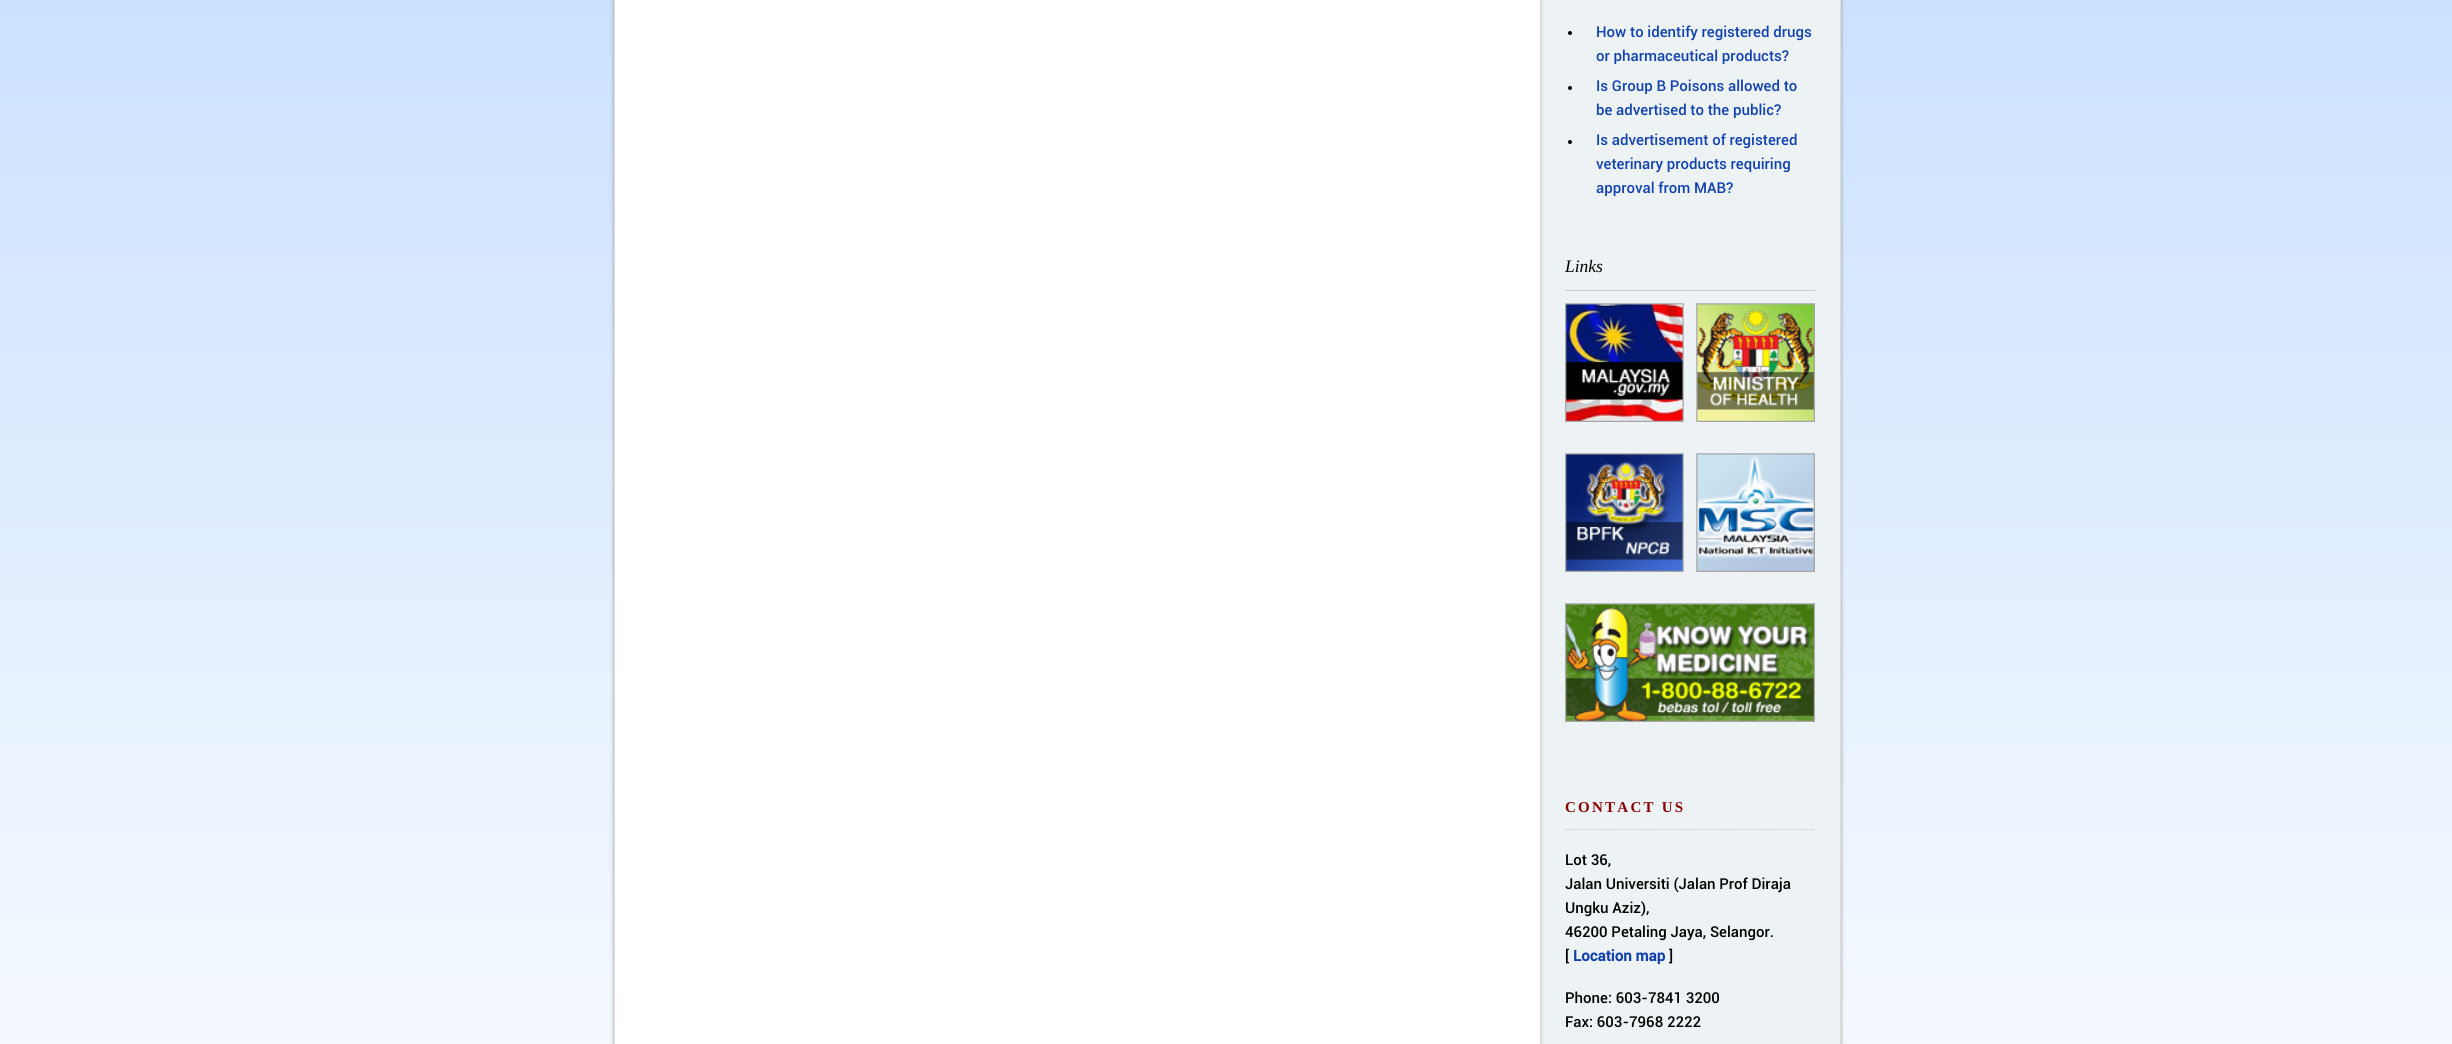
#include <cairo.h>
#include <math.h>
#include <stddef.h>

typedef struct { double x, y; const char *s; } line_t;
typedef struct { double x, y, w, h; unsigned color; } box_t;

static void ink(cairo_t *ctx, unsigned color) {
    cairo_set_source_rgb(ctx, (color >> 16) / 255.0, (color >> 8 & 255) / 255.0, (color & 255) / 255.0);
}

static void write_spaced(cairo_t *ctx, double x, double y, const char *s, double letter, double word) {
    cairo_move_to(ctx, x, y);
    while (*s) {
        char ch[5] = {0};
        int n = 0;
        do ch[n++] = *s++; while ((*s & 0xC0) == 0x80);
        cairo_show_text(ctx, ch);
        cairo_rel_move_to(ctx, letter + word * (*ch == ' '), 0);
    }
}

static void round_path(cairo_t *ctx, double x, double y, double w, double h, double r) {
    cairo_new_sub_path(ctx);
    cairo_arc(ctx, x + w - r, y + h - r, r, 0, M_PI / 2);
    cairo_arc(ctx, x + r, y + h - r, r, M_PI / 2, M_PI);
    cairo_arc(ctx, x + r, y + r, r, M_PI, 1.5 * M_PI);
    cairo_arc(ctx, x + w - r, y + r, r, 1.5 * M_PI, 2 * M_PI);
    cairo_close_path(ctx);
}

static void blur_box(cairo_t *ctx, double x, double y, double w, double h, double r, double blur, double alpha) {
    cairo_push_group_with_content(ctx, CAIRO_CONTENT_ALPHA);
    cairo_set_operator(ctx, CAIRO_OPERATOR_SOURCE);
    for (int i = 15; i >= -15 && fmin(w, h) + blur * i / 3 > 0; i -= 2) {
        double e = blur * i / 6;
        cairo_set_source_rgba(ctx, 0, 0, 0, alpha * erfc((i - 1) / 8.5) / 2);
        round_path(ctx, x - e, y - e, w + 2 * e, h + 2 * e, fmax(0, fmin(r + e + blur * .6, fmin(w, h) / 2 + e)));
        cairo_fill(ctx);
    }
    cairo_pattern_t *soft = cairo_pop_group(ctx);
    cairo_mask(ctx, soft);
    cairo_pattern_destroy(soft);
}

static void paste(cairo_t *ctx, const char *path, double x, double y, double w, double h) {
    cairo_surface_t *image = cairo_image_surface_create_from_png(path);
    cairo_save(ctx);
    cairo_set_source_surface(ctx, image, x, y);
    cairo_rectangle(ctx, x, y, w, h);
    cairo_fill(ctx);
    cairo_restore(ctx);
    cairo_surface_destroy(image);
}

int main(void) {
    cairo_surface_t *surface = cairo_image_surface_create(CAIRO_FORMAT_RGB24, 2452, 1044);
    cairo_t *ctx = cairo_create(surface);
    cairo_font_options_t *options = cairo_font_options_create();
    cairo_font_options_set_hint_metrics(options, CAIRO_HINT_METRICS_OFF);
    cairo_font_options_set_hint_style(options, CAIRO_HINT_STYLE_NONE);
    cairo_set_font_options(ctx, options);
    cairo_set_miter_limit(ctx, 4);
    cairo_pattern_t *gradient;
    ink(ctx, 0xFFFFFF);
    cairo_paint(ctx);
    gradient = cairo_pattern_create_linear(1226, 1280, 1226, -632);
    cairo_pattern_add_color_stop_rgba(gradient, 0, 1, 1, 1, 1);
    cairo_pattern_add_color_stop_rgba(gradient, 0.7, 0.788, 0.878, 1, 1);
    cairo_pattern_add_color_stop_rgba(gradient, 1, 0.945, 0.969, 1, 1);
    cairo_set_source(ctx, gradient);
    cairo_pattern_destroy(gradient);
    cairo_rectangle(ctx, 0, 0, 2452, 1044);
    cairo_fill(ctx);
    ink(ctx, 0x999999);
    blur_box(ctx, 614, -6, 1227, 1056, 0, 2, 1);
    {
        static const box_t items[] = {
            {615, 0, 925, 1044, 0xFFFFFF},
            {1840, 0, 1, 1044, 0xDDDDDD},
            {614, 0, 1, 1044, 0xDDDDDD},
            {1540, 0, 300, 1044, 0xEDF2F5},
        };
        for (size_t i = 0; i < sizeof items / sizeof *items; i++) {
            ink(ctx, items[i].color);
            cairo_rectangle(ctx, items[i].x, items[i].y, items[i].w, items[i].h);
            cairo_fill(ctx);
        }
    }
    paste(ctx, "media/1.png", 1540, 0, 4, 1044);
    ink(ctx, 0x000000);
    cairo_arc(ctx, 1570, 33, 2, 0, 2 * M_PI);
    cairo_fill(ctx);
    cairo_select_font_face(ctx, "Roboto Medium", CAIRO_FONT_SLANT_NORMAL, CAIRO_FONT_WEIGHT_NORMAL);
    cairo_set_font_size(ctx, 15);
    ink(ctx, 0x1142AE);
    cairo_move_to(ctx, 1596, 37);
    cairo_show_text(ctx, "How to identify registered drugs");
    cairo_move_to(ctx, 1596, 61);
    cairo_show_text(ctx, "or pharmaceutical products?");
    ink(ctx, 0x000000);
    cairo_new_path(ctx);
    cairo_arc(ctx, 1570, 88, 2, 0, 2 * M_PI);
    cairo_fill(ctx);
    ink(ctx, 0x1142AE);
    cairo_move_to(ctx, 1596, 91);
    cairo_show_text(ctx, "Is Group B Poisons allowed to");
    cairo_move_to(ctx, 1596, 115);
    cairo_show_text(ctx, "be advertised to the public?");
    ink(ctx, 0x000000);
    cairo_new_path(ctx);
    cairo_arc(ctx, 1570, 142, 2, 0, 2 * M_PI);
    cairo_fill(ctx);
    ink(ctx, 0x1142AE);
    {
        static const line_t items[] = {
            {1596, 145, "Is advertisement of registered"},
            {1596, 169, "veterinary products requiring"},
            {1596, 193, "approval from MAB?"},
        };
        for (size_t i = 0; i < sizeof items / sizeof *items; i++) {
            cairo_move_to(ctx, items[i].x, items[i].y);
            cairo_show_text(ctx, items[i].s);
        }
    }
    ink(ctx, 0xCCCCCC);
    cairo_rectangle(ctx, 1565, 290, 250, 1);
    cairo_fill(ctx);
    cairo_select_font_face(ctx, "Liberation Serif", CAIRO_FONT_SLANT_ITALIC, CAIRO_FONT_WEIGHT_NORMAL);
    cairo_set_font_size(ctx, 17.5);
    ink(ctx, 0x000000);
    cairo_move_to(ctx, 1565, 272);
    cairo_show_text(ctx, "Links");
    paste(ctx, "media/2.png", 1565, 303, 119, 119);
    paste(ctx, "media/3.png", 1696, 303, 119, 119);
    paste(ctx, "media/4.png", 1565, 453, 119, 119);
    paste(ctx, "media/5.png", 1696, 453, 119, 119);
    paste(ctx, "media/6.png", 1565, 603, 250, 119);
    cairo_new_path(ctx);
    cairo_move_to(ctx, 1565, 829.5);
    cairo_line_to(ctx, 1815, 829.5);
    ink(ctx, 0xCCCCCC);
    cairo_set_line_width(ctx, 1.2);
    cairo_set_dash(ctx, (double[]){1.25, 1.25}, 2, 0);
    cairo_stroke(ctx);
    cairo_select_font_face(ctx, "Liberation Serif", CAIRO_FONT_SLANT_NORMAL, CAIRO_FONT_WEIGHT_BOLD);
    cairo_set_font_size(ctx, 15);
    ink(ctx, 0x880000);
    write_spaced(ctx, 1565, 812, "CONTACT US", 2.25, 0);
    cairo_select_font_face(ctx, "Roboto Medium", CAIRO_FONT_SLANT_NORMAL, CAIRO_FONT_WEIGHT_NORMAL);
    ink(ctx, 0x000000);
    {
        static const line_t items[] = {
            {1565, 865, "Lot 36,"},
            {1565, 889, "Jalan Universiti (Jalan Prof Diraja"},
            {1565, 913, "Ungku Aziz),"},
            {1565, 937, "46200 Petaling Jaya, Selangor."},
            {1565, 961, "["},
        };
        for (size_t i = 0; i < sizeof items / sizeof *items; i++) {
            cairo_move_to(ctx, items[i].x, items[i].y);
            cairo_show_text(ctx, items[i].s);
        }
    }
    cairo_select_font_face(ctx, "Roboto", CAIRO_FONT_SLANT_NORMAL, CAIRO_FONT_WEIGHT_BOLD);
    ink(ctx, 0x1142AE);
    cairo_move_to(ctx, 1573, 961);
    cairo_show_text(ctx, "Location map");
    cairo_select_font_face(ctx, "Roboto Medium", CAIRO_FONT_SLANT_NORMAL, CAIRO_FONT_WEIGHT_NORMAL);
    ink(ctx, 0x000000);
    {
        static const line_t items[] = {
            {1669, 961, "]"},
            {1565, 1003, "Phone: 603-7841 3200"},
            {1565, 1027, "Fax: 603-7968 2222"},
        };
        for (size_t i = 0; i < sizeof items / sizeof *items; i++) {
            cairo_move_to(ctx, items[i].x, items[i].y);
            cairo_show_text(ctx, items[i].s);
        }
    }
    cairo_surface_write_to_png(surface, "image.png");
    cairo_font_options_destroy(options);
    cairo_destroy(ctx);
    cairo_surface_destroy(surface);
    return 0;
}
